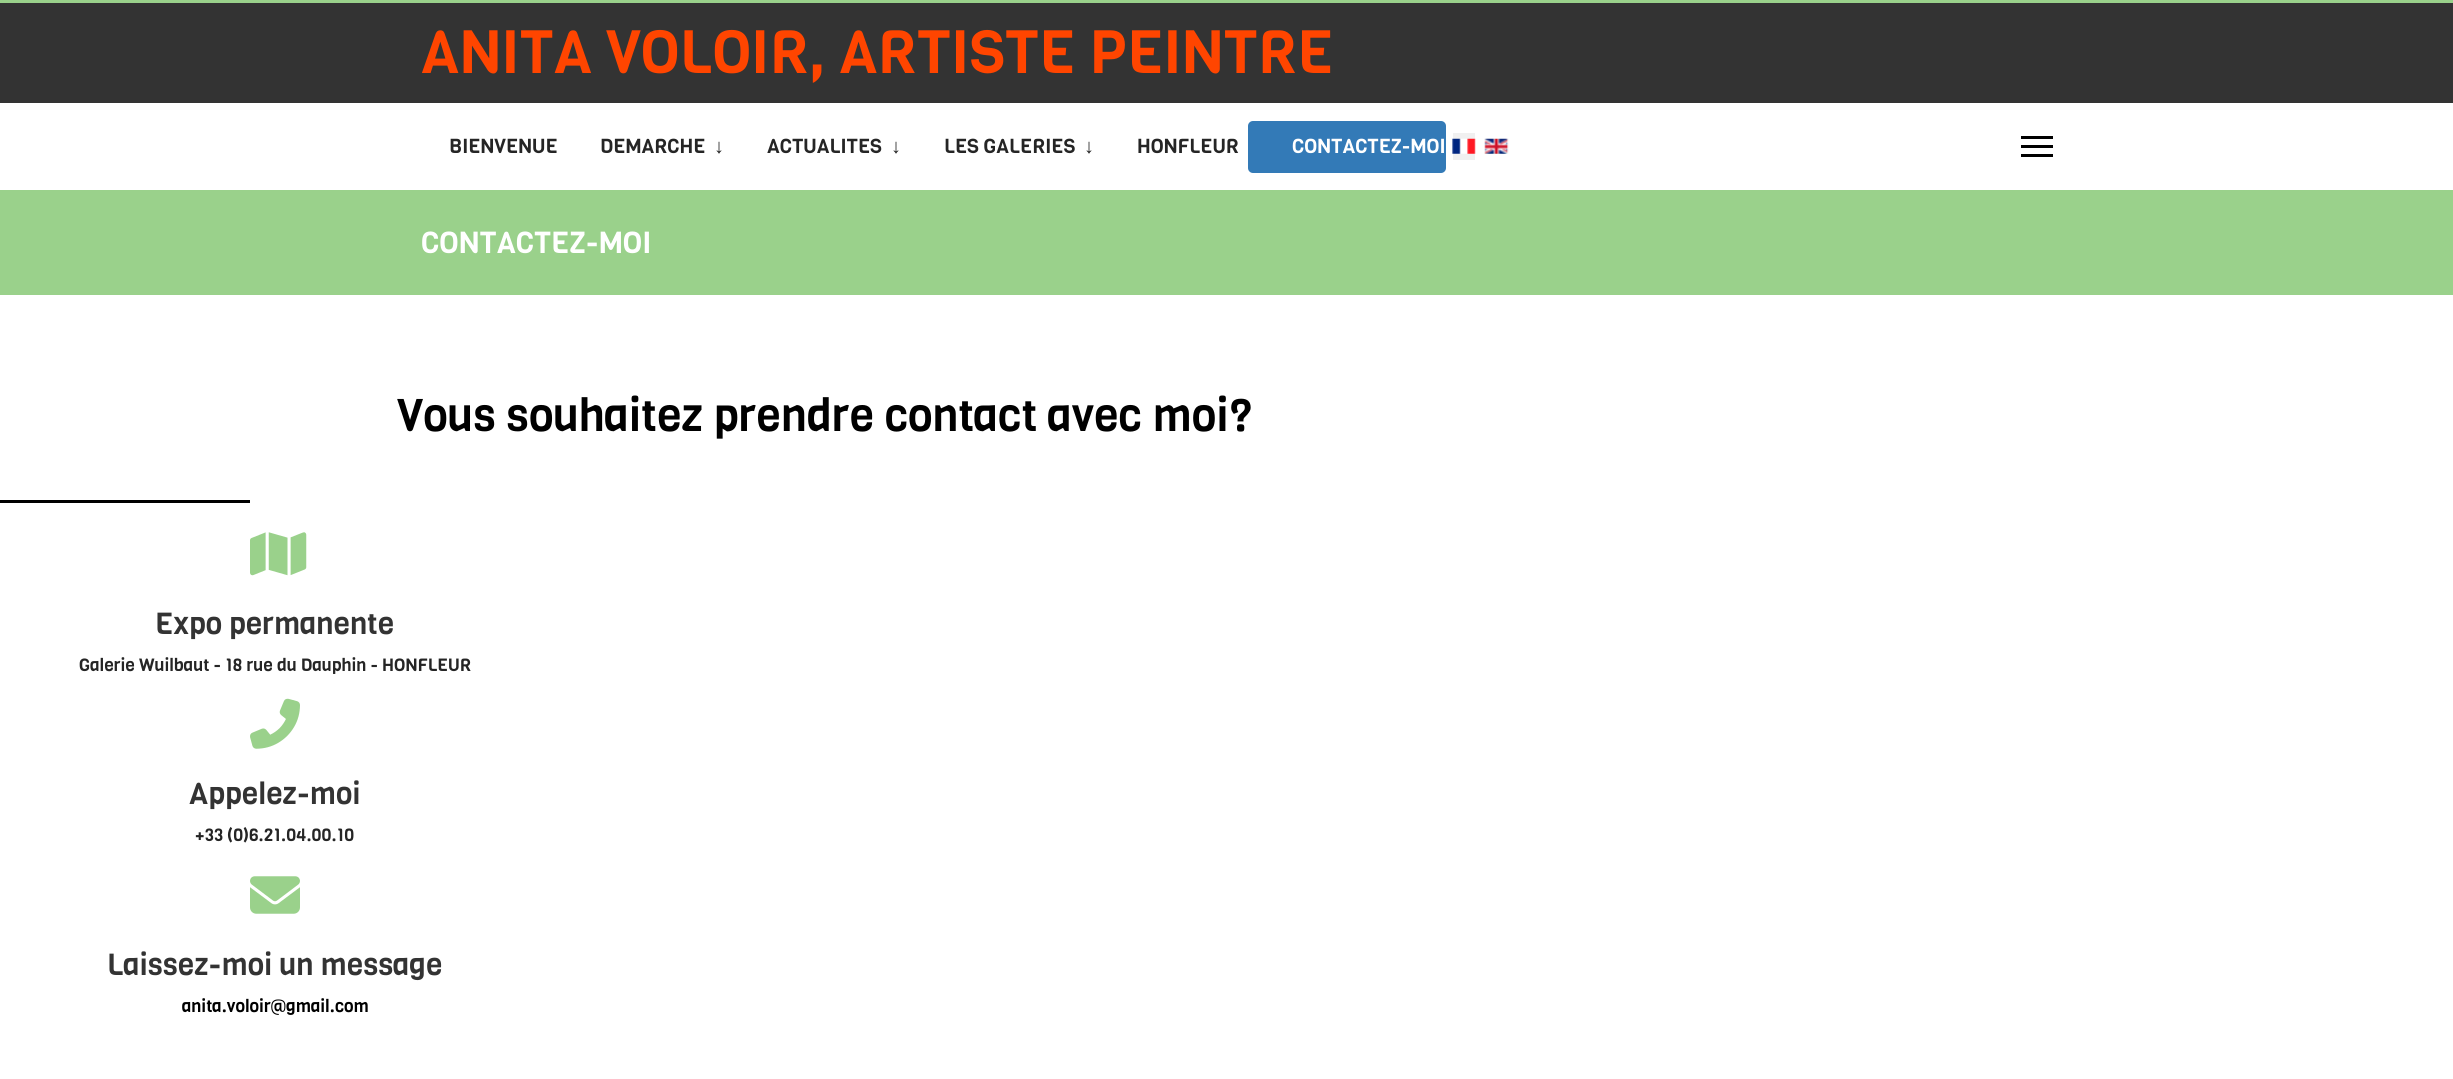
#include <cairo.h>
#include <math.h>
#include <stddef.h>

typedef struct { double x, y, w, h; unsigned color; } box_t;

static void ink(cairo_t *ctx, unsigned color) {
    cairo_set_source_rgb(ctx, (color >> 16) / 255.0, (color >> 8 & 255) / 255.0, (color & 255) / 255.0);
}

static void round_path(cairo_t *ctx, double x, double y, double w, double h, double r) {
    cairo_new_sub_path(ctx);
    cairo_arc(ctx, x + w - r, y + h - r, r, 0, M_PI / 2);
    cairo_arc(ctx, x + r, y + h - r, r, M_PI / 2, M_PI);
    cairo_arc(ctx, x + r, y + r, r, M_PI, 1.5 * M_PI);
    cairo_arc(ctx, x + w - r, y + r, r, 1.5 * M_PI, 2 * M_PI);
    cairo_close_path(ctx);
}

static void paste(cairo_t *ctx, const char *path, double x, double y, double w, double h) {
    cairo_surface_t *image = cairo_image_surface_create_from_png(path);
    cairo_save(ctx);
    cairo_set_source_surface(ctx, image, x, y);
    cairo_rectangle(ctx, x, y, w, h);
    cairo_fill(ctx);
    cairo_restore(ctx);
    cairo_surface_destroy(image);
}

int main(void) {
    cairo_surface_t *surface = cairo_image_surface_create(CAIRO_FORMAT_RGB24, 2453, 1079);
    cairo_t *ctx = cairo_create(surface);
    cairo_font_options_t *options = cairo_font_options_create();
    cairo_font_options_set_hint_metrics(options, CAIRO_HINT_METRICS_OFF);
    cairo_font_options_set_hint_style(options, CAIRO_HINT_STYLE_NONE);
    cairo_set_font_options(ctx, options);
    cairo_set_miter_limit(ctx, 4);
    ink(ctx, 0xFFFFFF);
    cairo_paint(ctx);
    ink(ctx, 0x9AD18B);
    cairo_rectangle(ctx, 0, 0, 2453, 3);
    cairo_fill(ctx);
    ink(ctx, 0x333333);
    cairo_rectangle(ctx, 0, 3, 2453, 100);
    cairo_fill(ctx);
    cairo_select_font_face(ctx, "Viga", CAIRO_FONT_SLANT_NORMAL, CAIRO_FONT_WEIGHT_NORMAL);
    cairo_set_font_size(ctx, 60);
    ink(ctx, 0xFF4500);
    cairo_move_to(ctx, 421, 73);
    cairo_show_text(ctx, "ANITA VOLOIR, ARTISTE PEINTRE");
    cairo_set_font_size(ctx, 20);
    ink(ctx, 0x252525);
    cairo_move_to(ctx, 449, 153);
    cairo_show_text(ctx, "BIENVENUE");
    cairo_move_to(ctx, 600, 153);
    cairo_show_text(ctx, "DEMARCHE");
    cairo_select_font_face(ctx, "Liberation Serif", CAIRO_FONT_SLANT_NORMAL, CAIRO_FONT_WEIGHT_BOLD);
    cairo_move_to(ctx, 714, 153);
    cairo_show_text(ctx, "↓");
    cairo_select_font_face(ctx, "Viga", CAIRO_FONT_SLANT_NORMAL, CAIRO_FONT_WEIGHT_NORMAL);
    cairo_move_to(ctx, 767, 153);
    cairo_show_text(ctx, "ACTUALITES");
    cairo_select_font_face(ctx, "Liberation Serif", CAIRO_FONT_SLANT_NORMAL, CAIRO_FONT_WEIGHT_BOLD);
    cairo_move_to(ctx, 891, 153);
    cairo_show_text(ctx, "↓");
    cairo_select_font_face(ctx, "Viga", CAIRO_FONT_SLANT_NORMAL, CAIRO_FONT_WEIGHT_NORMAL);
    cairo_move_to(ctx, 944, 153);
    cairo_show_text(ctx, "LES GALERIES");
    cairo_select_font_face(ctx, "Liberation Serif", CAIRO_FONT_SLANT_NORMAL, CAIRO_FONT_WEIGHT_BOLD);
    cairo_move_to(ctx, 1084, 153);
    cairo_show_text(ctx, "↓");
    cairo_select_font_face(ctx, "Viga", CAIRO_FONT_SLANT_NORMAL, CAIRO_FONT_WEIGHT_NORMAL);
    cairo_move_to(ctx, 1137, 153);
    cairo_show_text(ctx, "HONFLEUR");
    ink(ctx, 0x337AB7);
    round_path(ctx, 1248, 121, 198, 52, 5);
    cairo_fill(ctx);
    ink(ctx, 0xFFFFFF);
    cairo_move_to(ctx, 1292, 153);
    cairo_show_text(ctx, "CONTACTEZ-MOI");
    ink(ctx, 0xF0F0F0);
    cairo_rectangle(ctx, 1453, 133, 22, 27);
    cairo_fill(ctx);
    paste(ctx, "media/1.png", 1452, 138, 24, 16);
    paste(ctx, "media/2.png", 1484, 138, 25, 16);
    {
        static const box_t items[] = {
            {2021, 136, 32, 3, 0x000000},
            {2021, 145, 32, 3, 0x000000},
            {2021, 154, 32, 3, 0x000000},
            {0, 190, 2453, 105, 0x9AD18B},
        };
        for (size_t i = 0; i < sizeof items / sizeof *items; i++) {
            ink(ctx, items[i].color);
            cairo_rectangle(ctx, items[i].x, items[i].y, items[i].w, items[i].h);
            cairo_fill(ctx);
        }
    }
    cairo_set_font_size(ctx, 30);
    ink(ctx, 0xFFFFFF);
    cairo_move_to(ctx, 421, 253);
    cairo_show_text(ctx, "CONTACTEZ-MOI");
    cairo_set_font_size(ctx, 45);
    ink(ctx, 0x000000);
    cairo_move_to(ctx, 397, 431);
    cairo_show_text(ctx, "Vous souhaitez prendre contact avec moi?");
    cairo_rectangle(ctx, 0, 500, 250, 3);
    cairo_fill(ctx);
    paste(ctx, "media/3.png", 250, 532, 57, 44);
    cairo_set_font_size(ctx, 30);
    ink(ctx, 0x333333);
    cairo_move_to(ctx, 155, 634);
    cairo_show_text(ctx, "Expo permanente");
    cairo_set_font_size(ctx, 17.5);
    ink(ctx, 0x252525);
    cairo_move_to(ctx, 79, 671);
    cairo_show_text(ctx, "Galerie Wuilbaut - 18 rue du Dauphin - HONFLEUR");
    paste(ctx, "media/4.png", 250, 698, 50, 51);
    cairo_set_font_size(ctx, 30);
    ink(ctx, 0x333333);
    cairo_move_to(ctx, 189, 804);
    cairo_show_text(ctx, "Appelez-moi");
    cairo_set_font_size(ctx, 17.5);
    ink(ctx, 0x252525);
    cairo_move_to(ctx, 195, 841);
    cairo_show_text(ctx, "+33 (0)6.21.04.00.10");
    paste(ctx, "media/5.png", 250, 876, 50, 38);
    cairo_set_font_size(ctx, 30);
    ink(ctx, 0x333333);
    cairo_move_to(ctx, 107, 975);
    cairo_show_text(ctx, "Laissez-moi un message");
    cairo_set_font_size(ctx, 17.5);
    ink(ctx, 0x000000);
    cairo_move_to(ctx, 182, 1012);
    cairo_show_text(ctx, "anita.voloir@gmail.com");
    cairo_surface_write_to_png(surface, "image.png");
    cairo_font_options_destroy(options);
    cairo_destroy(ctx);
    cairo_surface_destroy(surface);
    return 0;
}
